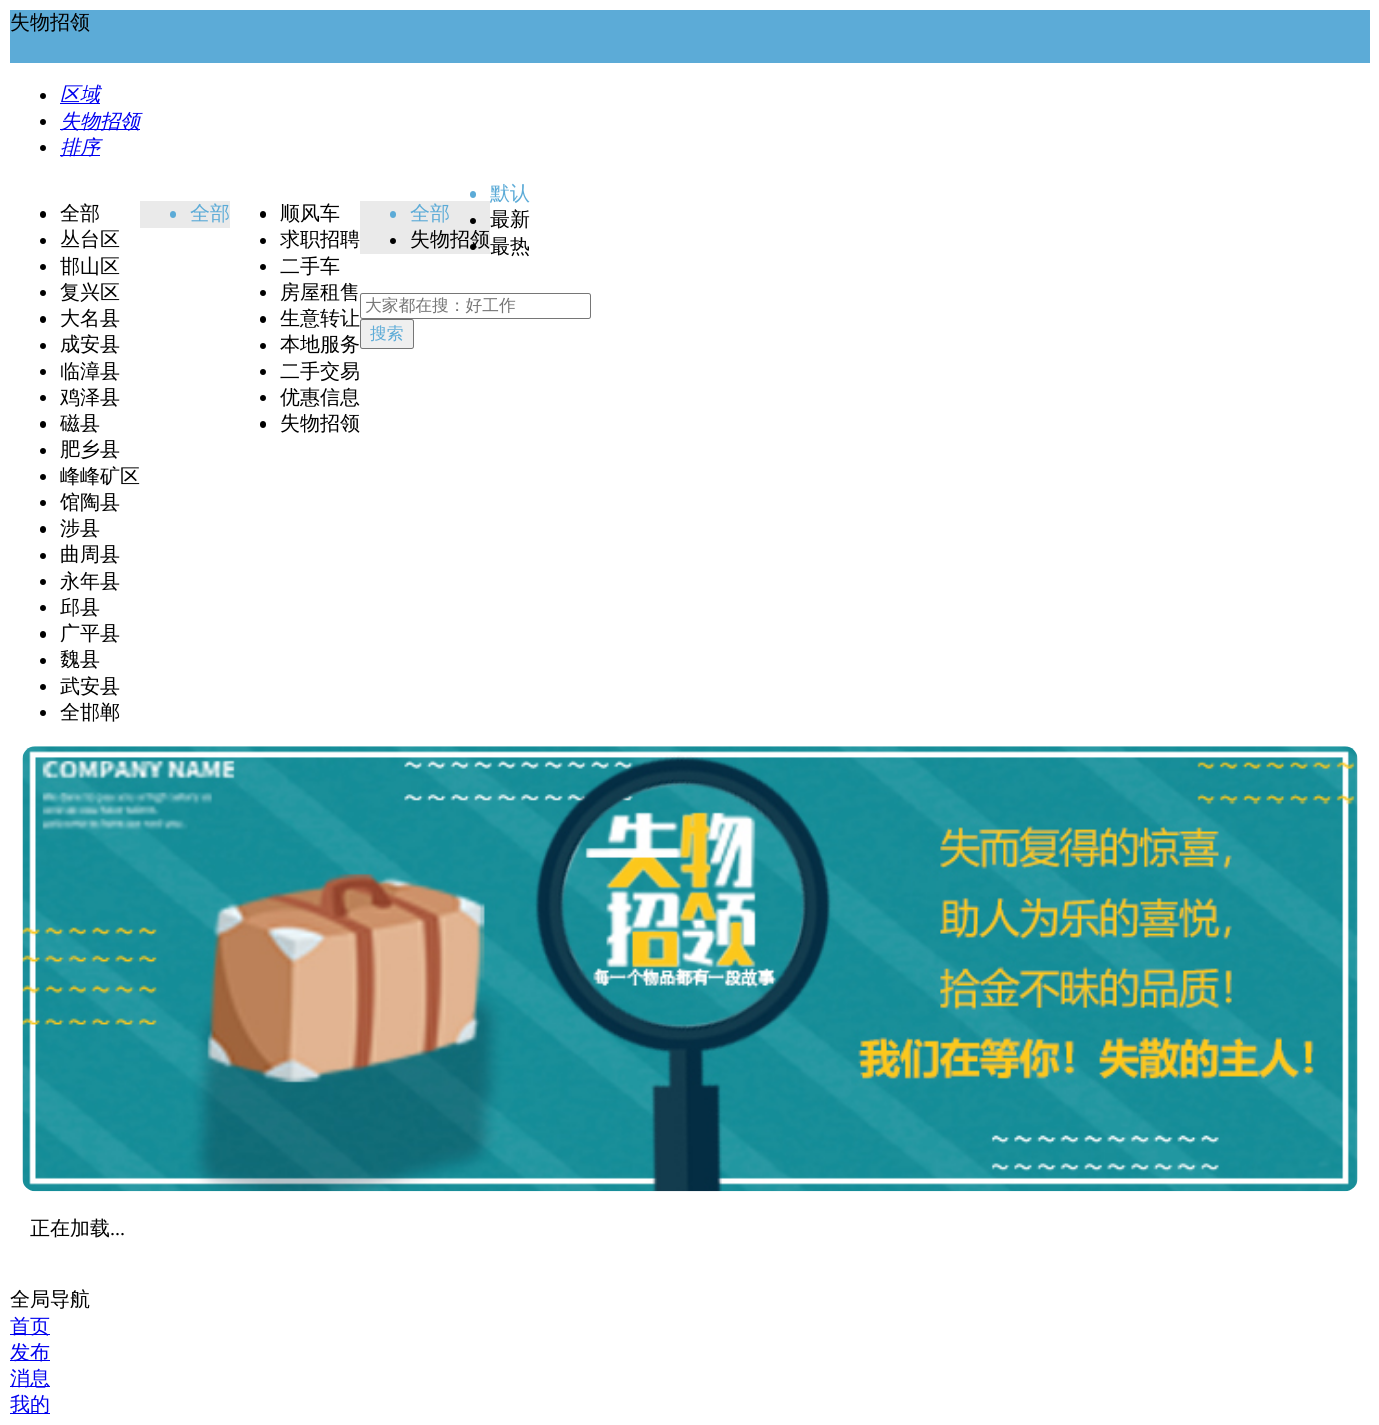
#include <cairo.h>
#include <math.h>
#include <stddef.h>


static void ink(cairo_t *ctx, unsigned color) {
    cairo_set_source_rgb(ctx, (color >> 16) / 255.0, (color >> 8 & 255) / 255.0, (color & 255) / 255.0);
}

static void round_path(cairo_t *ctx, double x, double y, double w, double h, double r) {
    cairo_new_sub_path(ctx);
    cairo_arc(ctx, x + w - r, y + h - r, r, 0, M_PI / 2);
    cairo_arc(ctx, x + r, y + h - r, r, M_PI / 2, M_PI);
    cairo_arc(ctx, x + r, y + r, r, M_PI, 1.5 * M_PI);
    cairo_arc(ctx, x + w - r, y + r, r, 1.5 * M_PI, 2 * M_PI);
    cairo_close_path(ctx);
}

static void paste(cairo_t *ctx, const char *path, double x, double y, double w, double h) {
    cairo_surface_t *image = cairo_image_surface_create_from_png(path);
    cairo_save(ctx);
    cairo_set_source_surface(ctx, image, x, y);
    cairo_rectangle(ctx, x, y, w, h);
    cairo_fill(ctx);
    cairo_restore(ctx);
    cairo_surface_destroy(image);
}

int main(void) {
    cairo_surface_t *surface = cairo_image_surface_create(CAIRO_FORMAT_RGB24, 1379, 1425);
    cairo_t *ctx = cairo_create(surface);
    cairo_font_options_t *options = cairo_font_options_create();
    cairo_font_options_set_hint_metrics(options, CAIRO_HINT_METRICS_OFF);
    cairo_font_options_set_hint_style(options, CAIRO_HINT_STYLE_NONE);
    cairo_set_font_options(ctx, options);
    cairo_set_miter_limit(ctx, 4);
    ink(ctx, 0xFFFFFF);
    cairo_paint(ctx);
    ink(ctx, 0x5CABD7);
    cairo_rectangle(ctx, 10, 10, 1360, 53);
    cairo_fill(ctx);
    cairo_select_font_face(ctx, "WenQuanYi Zen Hei Medium", CAIRO_FONT_SLANT_NORMAL, CAIRO_FONT_WEIGHT_NORMAL);
    cairo_set_font_size(ctx, 20);
    ink(ctx, 0x000000);
    cairo_move_to(ctx, 10, 29);
    cairo_show_text(ctx, "失物招领");
    cairo_new_path(ctx);
    cairo_arc(ctx, 43, 96, 3, 0, 2 * M_PI);
    cairo_fill(ctx);
    ink(ctx, 0x0000EE);
    cairo_rectangle(ctx, 60, 103, 40, 1);
    cairo_fill(ctx);
    cairo_select_font_face(ctx, "WenQuanYi Zen Hei Medium", CAIRO_FONT_SLANT_ITALIC, CAIRO_FONT_WEIGHT_NORMAL);
    cairo_move_to(ctx, 60, 101);
    cairo_show_text(ctx, "区域");
    ink(ctx, 0x000000);
    cairo_new_path(ctx);
    cairo_arc(ctx, 43, 122, 3, 0, 2 * M_PI);
    cairo_fill(ctx);
    ink(ctx, 0x0000EE);
    cairo_rectangle(ctx, 60, 129, 80, 1);
    cairo_fill(ctx);
    cairo_move_to(ctx, 60, 128);
    cairo_show_text(ctx, "失物招领");
    ink(ctx, 0x000000);
    cairo_new_path(ctx);
    cairo_arc(ctx, 43, 148, 3, 0, 2 * M_PI);
    cairo_fill(ctx);
    ink(ctx, 0x0000EE);
    cairo_rectangle(ctx, 60, 155, 40, 1);
    cairo_fill(ctx);
    cairo_move_to(ctx, 60, 154);
    cairo_show_text(ctx, "排序");
    ink(ctx, 0x000000);
    round_path(ctx, 40, 211, 6, 7, 3);
    cairo_fill(ctx);
    cairo_select_font_face(ctx, "WenQuanYi Zen Hei Medium", CAIRO_FONT_SLANT_NORMAL, CAIRO_FONT_WEIGHT_NORMAL);
    cairo_move_to(ctx, 60, 220);
    cairo_show_text(ctx, "全部");
    cairo_new_path(ctx);
    cairo_arc(ctx, 43, 241, 3, 0, 2 * M_PI);
    cairo_fill(ctx);
    cairo_move_to(ctx, 60, 246);
    cairo_show_text(ctx, "丛台区");
    cairo_new_path(ctx);
    cairo_arc(ctx, 43, 267, 3, 0, 2 * M_PI);
    cairo_fill(ctx);
    cairo_move_to(ctx, 60, 273);
    cairo_show_text(ctx, "邯山区");
    cairo_new_path(ctx);
    cairo_arc(ctx, 43, 293, 3, 0, 2 * M_PI);
    cairo_fill(ctx);
    cairo_move_to(ctx, 60, 299);
    cairo_show_text(ctx, "复兴区");
    round_path(ctx, 40, 316, 6, 7, 3);
    cairo_fill(ctx);
    cairo_move_to(ctx, 60, 325);
    cairo_show_text(ctx, "大名县");
    cairo_new_path(ctx);
    cairo_arc(ctx, 43, 346, 3, 0, 2 * M_PI);
    cairo_fill(ctx);
    cairo_move_to(ctx, 60, 351);
    cairo_show_text(ctx, "成安县");
    cairo_new_path(ctx);
    cairo_arc(ctx, 43, 372, 3, 0, 2 * M_PI);
    cairo_fill(ctx);
    cairo_move_to(ctx, 60, 378);
    cairo_show_text(ctx, "临漳县");
    cairo_new_path(ctx);
    cairo_arc(ctx, 43, 398, 3, 0, 2 * M_PI);
    cairo_fill(ctx);
    cairo_move_to(ctx, 60, 404);
    cairo_show_text(ctx, "鸡泽县");
    round_path(ctx, 40, 421, 6, 7, 3);
    cairo_fill(ctx);
    cairo_move_to(ctx, 60, 430);
    cairo_show_text(ctx, "磁县");
    cairo_new_path(ctx);
    cairo_arc(ctx, 43, 451, 3, 0, 2 * M_PI);
    cairo_fill(ctx);
    cairo_move_to(ctx, 60, 456);
    cairo_show_text(ctx, "肥乡县");
    cairo_new_path(ctx);
    cairo_arc(ctx, 43, 477, 3, 0, 2 * M_PI);
    cairo_fill(ctx);
    cairo_move_to(ctx, 60, 483);
    cairo_show_text(ctx, "峰峰矿区");
    cairo_new_path(ctx);
    cairo_arc(ctx, 43, 503, 3, 0, 2 * M_PI);
    cairo_fill(ctx);
    cairo_move_to(ctx, 60, 509);
    cairo_show_text(ctx, "馆陶县");
    round_path(ctx, 40, 526, 6, 7, 3);
    cairo_fill(ctx);
    cairo_move_to(ctx, 60, 535);
    cairo_show_text(ctx, "涉县");
    cairo_new_path(ctx);
    cairo_arc(ctx, 43, 556, 3, 0, 2 * M_PI);
    cairo_fill(ctx);
    cairo_move_to(ctx, 60, 561);
    cairo_show_text(ctx, "曲周县");
    cairo_new_path(ctx);
    cairo_arc(ctx, 43, 582, 3, 0, 2 * M_PI);
    cairo_fill(ctx);
    cairo_move_to(ctx, 60, 588);
    cairo_show_text(ctx, "永年县");
    cairo_new_path(ctx);
    cairo_arc(ctx, 43, 608, 3, 0, 2 * M_PI);
    cairo_fill(ctx);
    cairo_move_to(ctx, 60, 614);
    cairo_show_text(ctx, "邱县");
    round_path(ctx, 40, 631, 6, 7, 3);
    cairo_fill(ctx);
    cairo_move_to(ctx, 60, 640);
    cairo_show_text(ctx, "广平县");
    cairo_new_path(ctx);
    cairo_arc(ctx, 43, 661, 3, 0, 2 * M_PI);
    cairo_fill(ctx);
    cairo_move_to(ctx, 60, 666);
    cairo_show_text(ctx, "魏县");
    cairo_new_path(ctx);
    cairo_arc(ctx, 43, 687, 3, 0, 2 * M_PI);
    cairo_fill(ctx);
    cairo_move_to(ctx, 60, 693);
    cairo_show_text(ctx, "武安县");
    cairo_new_path(ctx);
    cairo_arc(ctx, 43, 713, 3, 0, 2 * M_PI);
    cairo_fill(ctx);
    cairo_move_to(ctx, 60, 719);
    cairo_show_text(ctx, "全邯郸");
    ink(ctx, 0xEAEAEA);
    cairo_rectangle(ctx, 140, 201, 90, 27);
    cairo_fill(ctx);
    ink(ctx, 0x5CABD7);
    round_path(ctx, 170, 211, 6, 7, 3);
    cairo_fill(ctx);
    cairo_move_to(ctx, 190, 220);
    cairo_show_text(ctx, "全部");
    ink(ctx, 0x000000);
    round_path(ctx, 260, 211, 6, 7, 3);
    cairo_fill(ctx);
    cairo_move_to(ctx, 280, 220);
    cairo_show_text(ctx, "顺风车");
    cairo_new_path(ctx);
    cairo_arc(ctx, 263, 241, 3, 0, 2 * M_PI);
    cairo_fill(ctx);
    cairo_move_to(ctx, 280, 246);
    cairo_show_text(ctx, "求职招聘");
    cairo_new_path(ctx);
    cairo_arc(ctx, 263, 267, 3, 0, 2 * M_PI);
    cairo_fill(ctx);
    cairo_move_to(ctx, 280, 273);
    cairo_show_text(ctx, "二手车");
    cairo_new_path(ctx);
    cairo_arc(ctx, 263, 293, 3, 0, 2 * M_PI);
    cairo_fill(ctx);
    cairo_move_to(ctx, 280, 299);
    cairo_show_text(ctx, "房屋租售");
    round_path(ctx, 260, 316, 6, 7, 3);
    cairo_fill(ctx);
    cairo_move_to(ctx, 280, 325);
    cairo_show_text(ctx, "生意转让");
    cairo_new_path(ctx);
    cairo_arc(ctx, 263, 346, 3, 0, 2 * M_PI);
    cairo_fill(ctx);
    cairo_move_to(ctx, 280, 351);
    cairo_show_text(ctx, "本地服务");
    cairo_new_path(ctx);
    cairo_arc(ctx, 263, 372, 3, 0, 2 * M_PI);
    cairo_fill(ctx);
    cairo_move_to(ctx, 280, 378);
    cairo_show_text(ctx, "二手交易");
    cairo_new_path(ctx);
    cairo_arc(ctx, 263, 398, 3, 0, 2 * M_PI);
    cairo_fill(ctx);
    cairo_move_to(ctx, 280, 404);
    cairo_show_text(ctx, "优惠信息");
    round_path(ctx, 260, 421, 6, 7, 3);
    cairo_fill(ctx);
    cairo_move_to(ctx, 280, 430);
    cairo_show_text(ctx, "失物招领");
    ink(ctx, 0xEAEAEA);
    cairo_rectangle(ctx, 360, 201, 130, 53);
    cairo_fill(ctx);
    ink(ctx, 0x5CABD7);
    round_path(ctx, 390, 211, 6, 7, 3);
    cairo_fill(ctx);
    cairo_move_to(ctx, 410, 220);
    cairo_show_text(ctx, "全部");
    ink(ctx, 0x000000);
    cairo_new_path(ctx);
    cairo_arc(ctx, 393, 241, 3, 0, 2 * M_PI);
    cairo_fill(ctx);
    cairo_move_to(ctx, 410, 246);
    cairo_show_text(ctx, "失物招领");
    ink(ctx, 0x5CABD7);
    round_path(ctx, 470, 191, 6, 7, 3);
    cairo_fill(ctx);
    cairo_move_to(ctx, 490, 200);
    cairo_show_text(ctx, "默认");
    ink(ctx, 0x000000);
    cairo_new_path(ctx);
    cairo_arc(ctx, 473, 221, 3, 0, 2 * M_PI);
    cairo_fill(ctx);
    cairo_move_to(ctx, 490, 226);
    cairo_show_text(ctx, "最新");
    cairo_new_path(ctx);
    cairo_arc(ctx, 473, 247, 3, 0, 2 * M_PI);
    cairo_fill(ctx);
    cairo_move_to(ctx, 490, 253);
    cairo_show_text(ctx, "最热");
    round_path(ctx, 360.5, 293.5, 230, 25, 2);
    ink(ctx, 0x767676);
    cairo_set_line_width(ctx, 1);
    cairo_stroke(ctx);
    cairo_set_font_size(ctx, 16.75);
    ink(ctx, 0x757575);
    cairo_move_to(ctx, 365, 311);
    cairo_show_text(ctx, "大家都在搜：好工作");
    ink(ctx, 0xEFEFEF);
    round_path(ctx, 360.5, 319.5, 53, 29, 2);
    cairo_fill_preserve(ctx);
    ink(ctx, 0x767676);
    cairo_stroke(ctx);
    ink(ctx, 0x5CABD7);
    cairo_move_to(ctx, 370, 339);
    cairo_show_text(ctx, "搜索");
    paste(ctx, "media/1.png", 22, 746, 1336, 446);
    cairo_set_font_size(ctx, 20);
    ink(ctx, 0x000000);
    cairo_move_to(ctx, 30, 1235);
    cairo_show_text(ctx, "正在加载");
    cairo_select_font_face(ctx, "Liberation Serif", CAIRO_FONT_SLANT_NORMAL, CAIRO_FONT_WEIGHT_NORMAL);
    cairo_move_to(ctx, 110, 1235);
    cairo_show_text(ctx, "...");
    cairo_select_font_face(ctx, "WenQuanYi Zen Hei Medium", CAIRO_FONT_SLANT_NORMAL, CAIRO_FONT_WEIGHT_NORMAL);
    cairo_move_to(ctx, 10, 1306);
    cairo_show_text(ctx, "全局导航");
    ink(ctx, 0x0000EE);
    cairo_rectangle(ctx, 10, 1334, 40, 1);
    cairo_fill(ctx);
    cairo_move_to(ctx, 10, 1333);
    cairo_show_text(ctx, "首页");
    cairo_rectangle(ctx, 10, 1360, 40, 1);
    cairo_fill(ctx);
    cairo_move_to(ctx, 10, 1359);
    cairo_show_text(ctx, "发布");
    cairo_rectangle(ctx, 10, 1386, 40, 1);
    cairo_fill(ctx);
    cairo_move_to(ctx, 10, 1385);
    cairo_show_text(ctx, "消息");
    cairo_rectangle(ctx, 10, 1413, 40, 1);
    cairo_fill(ctx);
    cairo_move_to(ctx, 10, 1411);
    cairo_show_text(ctx, "我的");
    cairo_surface_write_to_png(surface, "image.png");
    cairo_font_options_destroy(options);
    cairo_destroy(ctx);
    cairo_surface_destroy(surface);
    return 0;
}
